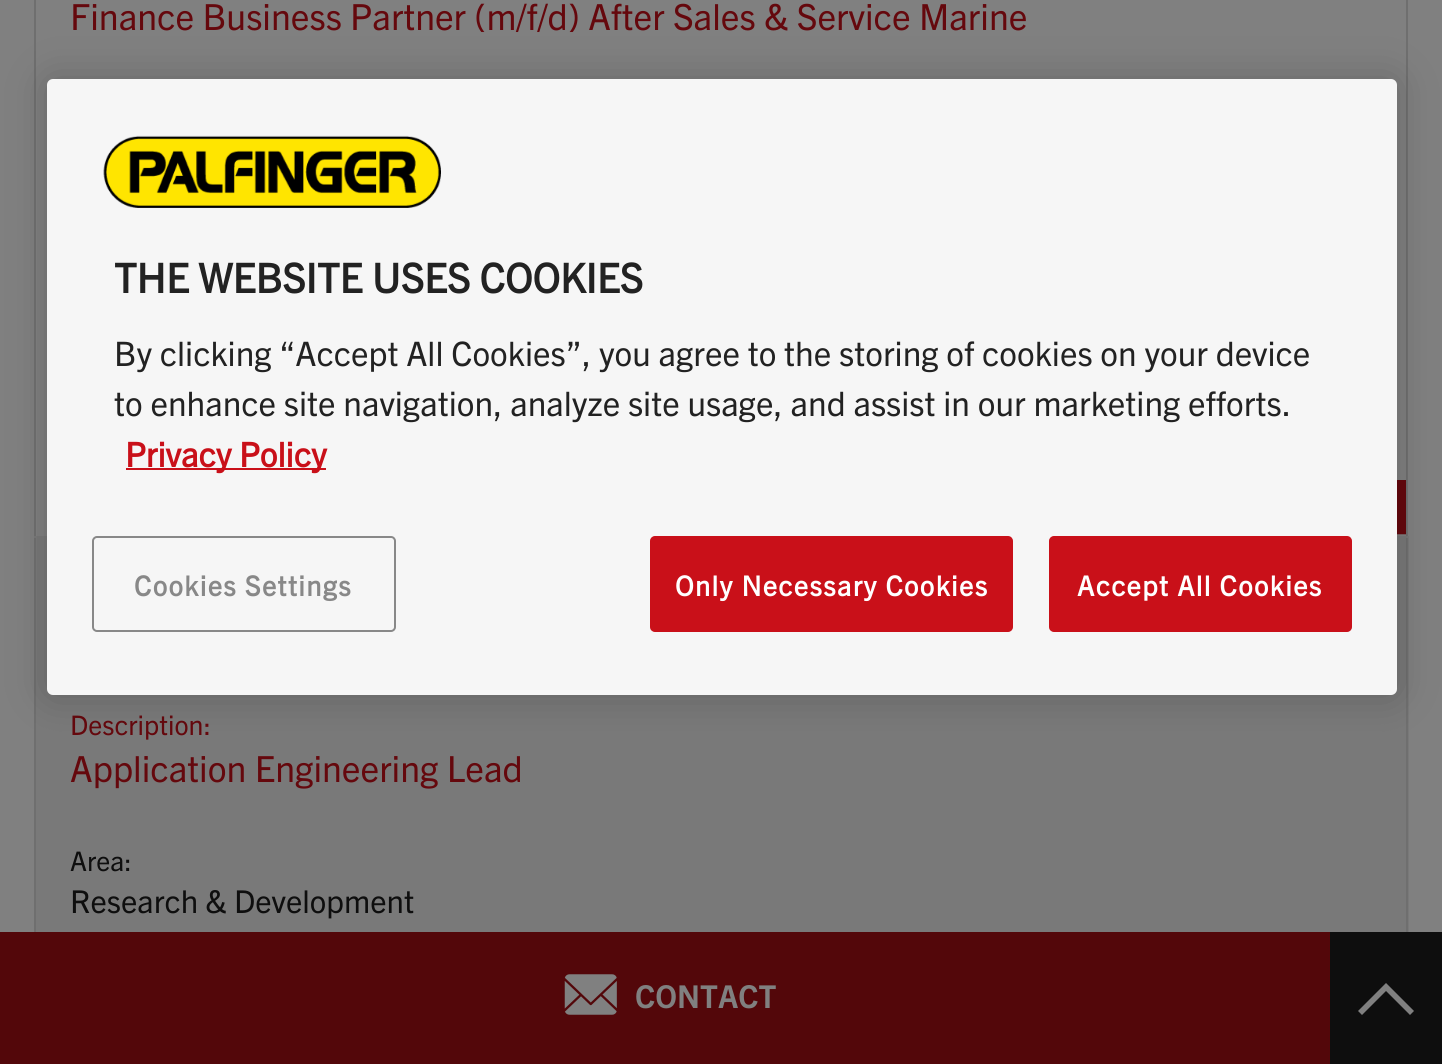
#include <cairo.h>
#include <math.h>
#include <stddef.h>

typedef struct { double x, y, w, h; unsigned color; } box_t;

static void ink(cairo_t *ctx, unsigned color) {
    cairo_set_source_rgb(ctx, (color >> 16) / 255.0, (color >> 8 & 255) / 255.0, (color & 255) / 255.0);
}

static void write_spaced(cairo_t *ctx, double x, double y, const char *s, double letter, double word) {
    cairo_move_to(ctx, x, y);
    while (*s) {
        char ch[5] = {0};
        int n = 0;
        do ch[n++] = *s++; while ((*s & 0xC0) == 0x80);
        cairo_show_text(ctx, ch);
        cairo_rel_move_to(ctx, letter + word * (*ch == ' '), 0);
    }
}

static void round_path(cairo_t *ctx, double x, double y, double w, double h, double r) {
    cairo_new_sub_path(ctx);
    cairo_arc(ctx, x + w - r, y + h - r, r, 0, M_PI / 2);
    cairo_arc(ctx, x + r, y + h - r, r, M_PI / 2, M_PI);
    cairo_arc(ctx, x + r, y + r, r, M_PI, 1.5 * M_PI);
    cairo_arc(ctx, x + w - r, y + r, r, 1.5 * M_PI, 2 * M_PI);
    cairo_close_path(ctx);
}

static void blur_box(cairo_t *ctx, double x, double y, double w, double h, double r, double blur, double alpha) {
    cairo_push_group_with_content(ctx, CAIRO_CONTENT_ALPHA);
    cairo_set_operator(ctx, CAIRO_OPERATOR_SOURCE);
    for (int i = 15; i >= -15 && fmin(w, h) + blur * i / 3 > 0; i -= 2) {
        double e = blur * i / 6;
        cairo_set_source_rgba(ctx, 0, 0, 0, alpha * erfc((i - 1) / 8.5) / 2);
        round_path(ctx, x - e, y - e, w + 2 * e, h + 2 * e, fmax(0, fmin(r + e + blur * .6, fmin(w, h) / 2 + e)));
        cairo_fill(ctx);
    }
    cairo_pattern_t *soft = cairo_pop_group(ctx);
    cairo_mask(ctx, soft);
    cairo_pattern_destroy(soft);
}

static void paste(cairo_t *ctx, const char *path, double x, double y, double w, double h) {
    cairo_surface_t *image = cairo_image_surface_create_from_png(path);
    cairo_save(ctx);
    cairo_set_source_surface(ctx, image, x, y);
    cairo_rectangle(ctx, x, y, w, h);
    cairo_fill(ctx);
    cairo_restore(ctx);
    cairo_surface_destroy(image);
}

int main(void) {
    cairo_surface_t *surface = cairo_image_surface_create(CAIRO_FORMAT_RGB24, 1442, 1064);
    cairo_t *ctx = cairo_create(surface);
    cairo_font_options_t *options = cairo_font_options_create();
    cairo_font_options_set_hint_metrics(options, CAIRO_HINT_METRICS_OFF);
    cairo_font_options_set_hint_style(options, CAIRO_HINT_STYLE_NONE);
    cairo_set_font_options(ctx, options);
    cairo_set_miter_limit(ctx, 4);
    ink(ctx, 0x808080);
    cairo_paint(ctx);
    {
        static const box_t items[] = {
            {36, 538, 1373, 394, 0x797979},
            {1406, 0, 2, 932, 0x6F6F6F},
            {34, 0, 2, 932, 0x6F6F6F},
        };
        for (size_t i = 0; i < sizeof items / sizeof *items; i++) {
            ink(ctx, items[i].color);
            cairo_rectangle(ctx, items[i].x, items[i].y, items[i].w, items[i].h);
            cairo_fill(ctx);
        }
    }
    cairo_select_font_face(ctx, "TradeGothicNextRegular", CAIRO_FONT_SLANT_NORMAL, CAIRO_FONT_WEIGHT_NORMAL);
    cairo_set_font_size(ctx, 36);
    ink(ctx, 0x65080D);
    cairo_move_to(ctx, 70, 30);
    cairo_show_text(ctx, "Finance Business Partner (m/f/d) After Sales & Service Marine");
    cairo_save(ctx);
    cairo_rectangle(ctx, 36, 459, 1370, 77);
    cairo_clip(ctx);
    cairo_new_path(ctx);
    cairo_move_to(ctx, 1357, 480);
    cairo_line_to(ctx, 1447, 480);
    cairo_line_to(ctx, 1411, 534);
    cairo_line_to(ctx, 1321, 534);
    cairo_close_path(ctx);
    cairo_fill(ctx);
    cairo_new_path(ctx);
    cairo_move_to(ctx, 1357.5, 482.5);
    cairo_line_to(ctx, 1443, 482.5);
    cairo_line_to(ctx, 1410, 532);
    cairo_line_to(ctx, 1324.5, 532);
    cairo_close_path(ctx);
    cairo_set_line_width(ctx, 4.5);
    cairo_stroke(ctx);
    cairo_restore(ctx);
    ink(ctx, 0x797979);
    cairo_rectangle(ctx, 34, 536, 1375, 2);
    cairo_fill(ctx);
    cairo_set_font_size(ctx, 27);
    ink(ctx, 0x65080D);
    cairo_move_to(ctx, 70, 735);
    cairo_show_text(ctx, "Description:");
    cairo_set_font_size(ctx, 36);
    cairo_move_to(ctx, 70, 782);
    cairo_show_text(ctx, "Application Engineering Lead");
    cairo_set_font_size(ctx, 27);
    ink(ctx, 0x0E0E0E);
    cairo_move_to(ctx, 70, 871);
    cairo_show_text(ctx, "Area:");
    cairo_set_font_size(ctx, 31.5);
    cairo_move_to(ctx, 70, 913);
    cairo_show_text(ctx, "Research & Development");
    ink(ctx, 0x53070A);
    cairo_rectangle(ctx, 0, 932, 1330, 132);
    cairo_fill(ctx);
    paste(ctx, "media/1.png", 564, 974, 53, 41);
    cairo_select_font_face(ctx, "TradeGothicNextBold", CAIRO_FONT_SLANT_NORMAL, CAIRO_FONT_WEIGHT_BOLD);
    ink(ctx, 0x808080);
    cairo_move_to(ctx, 635, 1008);
    cairo_show_text(ctx, "CONTACT");
    ink(ctx, 0x0E0E0E);
    cairo_rectangle(ctx, 1330, 932, 112, 132);
    cairo_fill(ctx);
    ink(ctx, 0x808080);
    cairo_new_path(ctx);
    cairo_move_to(ctx, 1386, 983);
    cairo_line_to(ctx, 1358, 1011);
    cairo_line_to(ctx, 1362, 1015);
    cairo_line_to(ctx, 1386, 991);
    cairo_line_to(ctx, 1410, 1015);
    cairo_line_to(ctx, 1414, 1011);
    cairo_close_path(ctx);
    cairo_fill(ctx);
    ink(ctx, 0x000000);
    blur_box(ctx, 47, 79, 1350, 616, 6, 20, 0.2);
    ink(ctx, 0xF6F6F6);
    round_path(ctx, 47, 79, 1350, 616, 6);
    cairo_fill(ctx);
    paste(ctx, "media/2.png", 103, 135, 338, 73);
    cairo_select_font_face(ctx, "TradeGothicNextRegular", CAIRO_FONT_SLANT_NORMAL, CAIRO_FONT_WEIGHT_BOLD);
    cairo_set_font_size(ctx, 40.5);
    ink(ctx, 0x222222);
    cairo_move_to(ctx, 114, 293);
    cairo_show_text(ctx, "THE WEBSITE USES COOKIES");
    cairo_select_font_face(ctx, "TradeGothicNextRegular", CAIRO_FONT_SLANT_NORMAL, CAIRO_FONT_WEIGHT_NORMAL);
    cairo_set_font_size(ctx, 33.75);
    cairo_move_to(ctx, 114, 366);
    cairo_show_text(ctx, "By clicking “Accept All Cookies”, you agree to the storing of cookies on your device");
    cairo_move_to(ctx, 114, 416);
    cairo_show_text(ctx, "to enhance site navigation, analyze site usage, and assist in our marketing efforts.");
    ink(ctx, 0xC91019);
    cairo_rectangle(ctx, 126, 468, 200, 2);
    cairo_fill(ctx);
    cairo_select_font_face(ctx, "TradeGothicNextRegular", CAIRO_FONT_SLANT_NORMAL, CAIRO_FONT_WEIGHT_BOLD);
    cairo_move_to(ctx, 125, 467);
    cairo_show_text(ctx, "Privacy Policy");
    round_path(ctx, 93, 537, 302, 94, 4);
    ink(ctx, 0x888888);
    cairo_stroke(ctx);
    cairo_set_font_size(ctx, 27.5);
    write_spaced(ctx, 134, 596, "Cookies Settings", 1.4, 0);
    ink(ctx, 0xC91019);
    round_path(ctx, 651, 537, 361, 94, 4);
    cairo_fill_preserve(ctx);
    cairo_stroke(ctx);
    ink(ctx, 0xFFFFFF);
    write_spaced(ctx, 675, 596, "Only Necessary Cookies", 1.4, 0);
    ink(ctx, 0xC91019);
    round_path(ctx, 1050, 537, 301, 94, 4);
    cairo_fill_preserve(ctx);
    cairo_stroke(ctx);
    ink(ctx, 0xFFFFFF);
    write_spaced(ctx, 1077, 596, "Accept All Cookies", 1.4, 0);
    cairo_surface_write_to_png(surface, "image.png");
    cairo_font_options_destroy(options);
    cairo_destroy(ctx);
    cairo_surface_destroy(surface);
    return 0;
}
